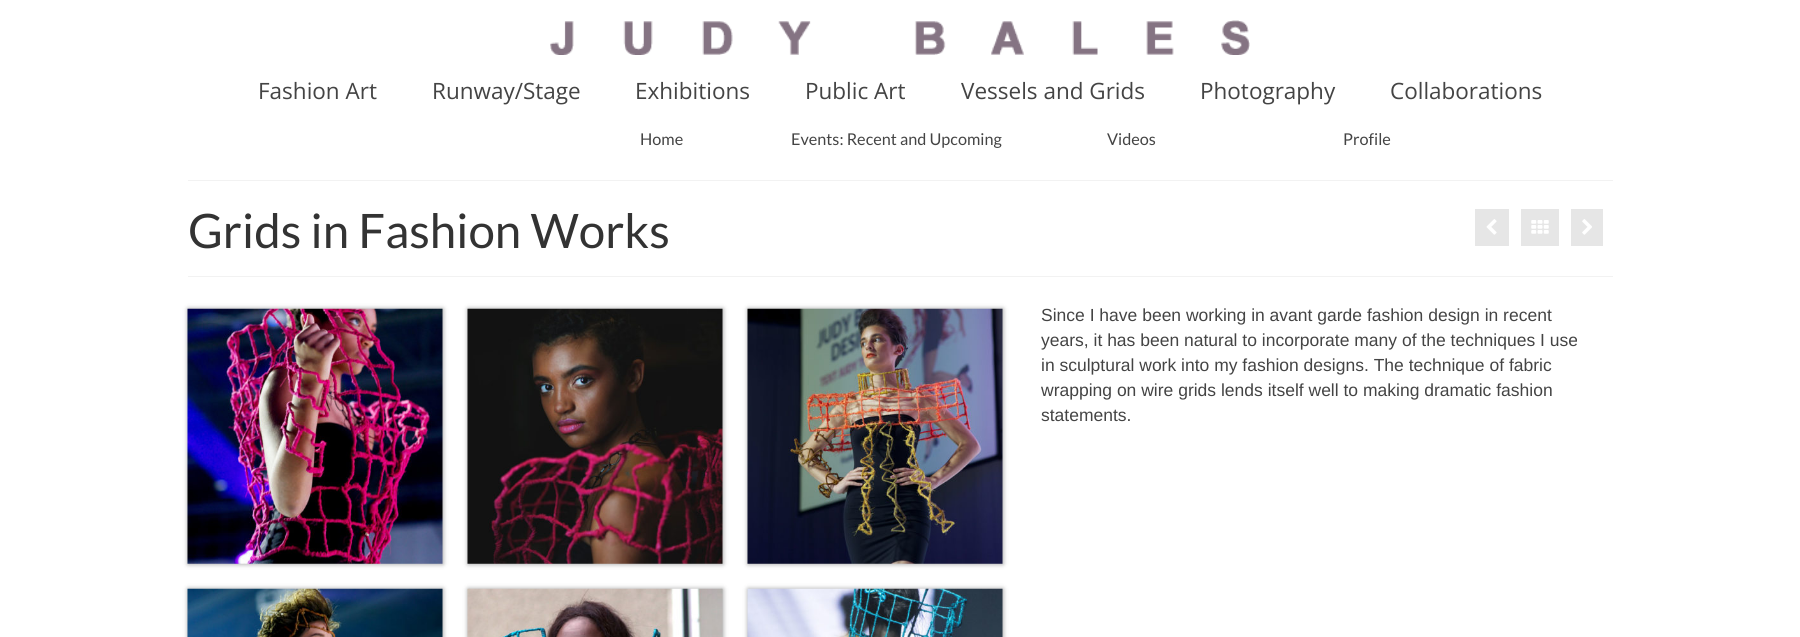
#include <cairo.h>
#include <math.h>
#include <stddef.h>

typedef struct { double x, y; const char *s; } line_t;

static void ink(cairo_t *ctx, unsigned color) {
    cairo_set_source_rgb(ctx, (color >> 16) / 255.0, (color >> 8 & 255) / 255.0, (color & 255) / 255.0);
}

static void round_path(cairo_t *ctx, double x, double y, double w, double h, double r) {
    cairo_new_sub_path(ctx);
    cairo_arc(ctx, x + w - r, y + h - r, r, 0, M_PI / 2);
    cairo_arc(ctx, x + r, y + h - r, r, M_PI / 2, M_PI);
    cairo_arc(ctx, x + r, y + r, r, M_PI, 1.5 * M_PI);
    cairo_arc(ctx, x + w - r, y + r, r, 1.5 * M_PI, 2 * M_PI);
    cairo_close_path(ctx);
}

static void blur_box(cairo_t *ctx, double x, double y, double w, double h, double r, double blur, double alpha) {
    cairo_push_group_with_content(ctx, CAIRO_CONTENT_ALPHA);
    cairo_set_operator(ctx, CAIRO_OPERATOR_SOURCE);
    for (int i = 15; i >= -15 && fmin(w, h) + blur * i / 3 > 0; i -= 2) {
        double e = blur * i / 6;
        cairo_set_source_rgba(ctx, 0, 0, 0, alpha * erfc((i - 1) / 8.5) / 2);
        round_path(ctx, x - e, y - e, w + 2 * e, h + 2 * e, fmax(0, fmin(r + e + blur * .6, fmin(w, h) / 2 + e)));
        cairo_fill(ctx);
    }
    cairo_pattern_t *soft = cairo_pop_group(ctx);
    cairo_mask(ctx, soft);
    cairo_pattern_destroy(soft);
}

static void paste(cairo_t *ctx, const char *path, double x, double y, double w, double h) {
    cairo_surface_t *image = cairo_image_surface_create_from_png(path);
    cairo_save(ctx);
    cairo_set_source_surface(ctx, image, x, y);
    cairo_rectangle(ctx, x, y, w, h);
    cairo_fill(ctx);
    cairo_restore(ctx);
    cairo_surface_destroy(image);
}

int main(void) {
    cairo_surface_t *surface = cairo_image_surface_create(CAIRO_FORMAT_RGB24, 1800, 637);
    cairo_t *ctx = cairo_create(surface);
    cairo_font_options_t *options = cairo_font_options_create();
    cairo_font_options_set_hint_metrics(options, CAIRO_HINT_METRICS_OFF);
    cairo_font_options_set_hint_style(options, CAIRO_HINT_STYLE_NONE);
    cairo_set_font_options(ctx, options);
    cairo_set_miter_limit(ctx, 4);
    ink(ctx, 0xFFFFFF);
    cairo_paint(ctx);
    paste(ctx, "media/1.png", 550, 20, 700, 35);
    cairo_select_font_face(ctx, "Open Sans", CAIRO_FONT_SLANT_NORMAL, CAIRO_FONT_WEIGHT_NORMAL);
    cairo_set_font_size(ctx, 22.5);
    ink(ctx, 0x444444);
    {
        static const line_t items[] = {
            {258, 99, "Fashion Art"},
            {432, 99, "Runway/Stage"},
            {635, 99, "Exhibitions"},
            {805, 99, "Public Art"},
            {961, 99, "Vessels and Grids"},
            {1200, 99, "Photography"},
            {1390, 99, "Collaborations"},
        };
        for (size_t i = 0; i < sizeof items / sizeof *items; i++) {
            cairo_move_to(ctx, items[i].x, items[i].y);
            cairo_show_text(ctx, items[i].s);
        }
    }
    cairo_select_font_face(ctx, "Lato", CAIRO_FONT_SLANT_NORMAL, CAIRO_FONT_WEIGHT_NORMAL);
    cairo_set_font_size(ctx, 16.25);
    {
        static const line_t items[] = {
            {640, 145, "Home"},
            {791, 145, "Events: Recent and Upcoming"},
            {1107, 145, "Videos"},
            {1343, 145, "Profile"},
        };
        for (size_t i = 0; i < sizeof items / sizeof *items; i++) {
            cairo_move_to(ctx, items[i].x, items[i].y);
            cairo_show_text(ctx, items[i].s);
        }
    }
    ink(ctx, 0xF2F2F2);
    cairo_rectangle(ctx, 188, 180, 1425, 1);
    cairo_fill(ctx);
    cairo_rectangle(ctx, 188, 276, 1425, 1);
    cairo_fill(ctx);
    cairo_set_font_size(ctx, 47.5);
    ink(ctx, 0x333333);
    cairo_move_to(ctx, 188, 248);
    cairo_show_text(ctx, "Grids in Fashion Works");
    ink(ctx, 0xE6E6E6);
    cairo_rectangle(ctx, 1475, 209, 34, 37);
    cairo_fill(ctx);
    paste(ctx, "media/2.png", 1486, 219, 11, 16);
    cairo_rectangle(ctx, 1521, 209, 38, 37);
    cairo_fill(ctx);
    paste(ctx, "media/3.png", 1531, 220, 18, 14);
    cairo_rectangle(ctx, 1571, 209, 32, 37);
    cairo_fill(ctx);
    paste(ctx, "media/4.png", 1582, 219, 10, 16);
    ink(ctx, 0x000000);
    blur_box(ctx, 188, 309, 255, 255, 0, 2.5, 0.4);
    paste(ctx, "media/5.png", 187, 308, 256, 256);
    blur_box(ctx, 468, 309, 255, 255, 0, 2.5, 0.4);
    paste(ctx, "media/6.png", 467, 308, 256, 256);
    blur_box(ctx, 748, 309, 255, 255, 0, 2.5, 0.4);
    paste(ctx, "media/7.png", 747, 308, 256, 256);
    blur_box(ctx, 188, 589, 255, 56, 0, 2.5, 0.4);
    paste(ctx, "media/8.png", 187, 588, 256, 49);
    blur_box(ctx, 468, 589, 255, 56, 0, 2.5, 0.4);
    paste(ctx, "media/9.png", 467, 588, 256, 49);
    blur_box(ctx, 748, 589, 255, 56, 0, 2.5, 0.4);
    paste(ctx, "media/10.png", 747, 588, 256, 49);
    cairo_select_font_face(ctx, "Liberation Sans", CAIRO_FONT_SLANT_NORMAL, CAIRO_FONT_WEIGHT_NORMAL);
    cairo_set_font_size(ctx, 17.5);
    ink(ctx, 0x444444);
    {
        static const line_t items[] = {
            {1041, 321, "Since I have been working in avant garde fashion design in recent"},
            {1041, 346, "years, it has been natural to incorporate many of the techniques I use"},
            {1041, 371, "in sculptural work into my fashion designs. The technique of fabric"},
            {1041, 396, "wrapping on wire grids lends itself well to making dramatic fashion"},
            {1041, 421, "statements."},
        };
        for (size_t i = 0; i < sizeof items / sizeof *items; i++) {
            cairo_move_to(ctx, items[i].x, items[i].y);
            cairo_show_text(ctx, items[i].s);
        }
    }
    cairo_surface_write_to_png(surface, "image.png");
    cairo_font_options_destroy(options);
    cairo_destroy(ctx);
    cairo_surface_destroy(surface);
    return 0;
}
